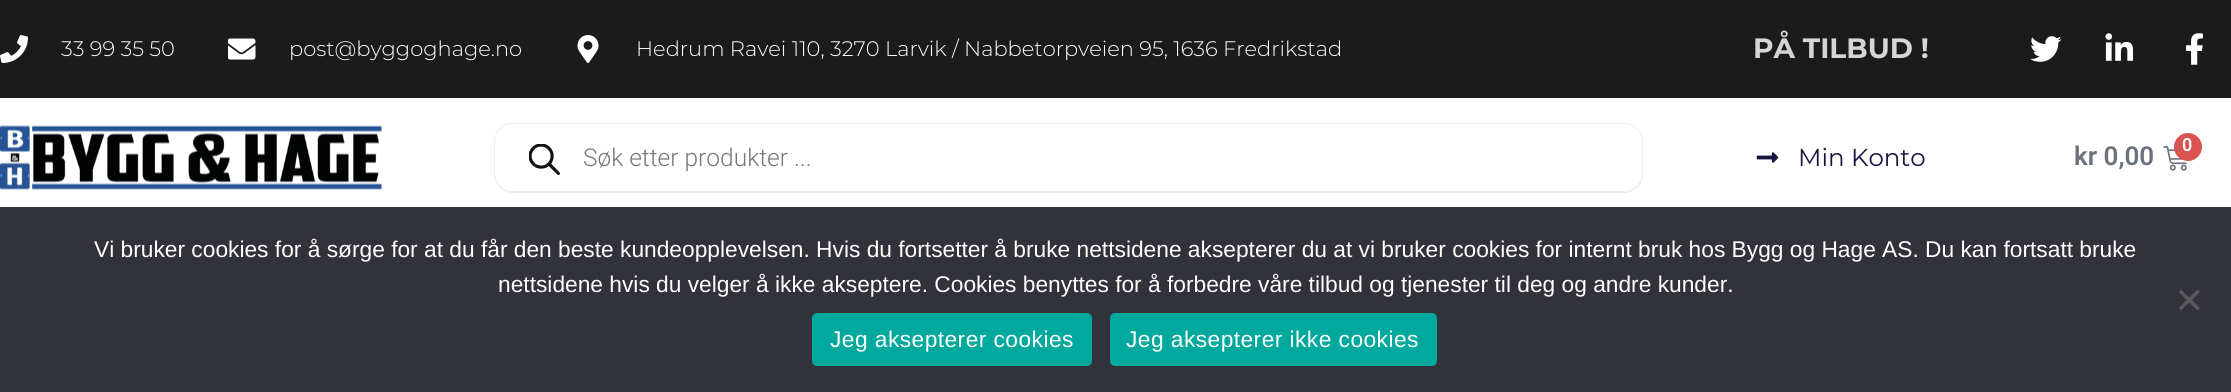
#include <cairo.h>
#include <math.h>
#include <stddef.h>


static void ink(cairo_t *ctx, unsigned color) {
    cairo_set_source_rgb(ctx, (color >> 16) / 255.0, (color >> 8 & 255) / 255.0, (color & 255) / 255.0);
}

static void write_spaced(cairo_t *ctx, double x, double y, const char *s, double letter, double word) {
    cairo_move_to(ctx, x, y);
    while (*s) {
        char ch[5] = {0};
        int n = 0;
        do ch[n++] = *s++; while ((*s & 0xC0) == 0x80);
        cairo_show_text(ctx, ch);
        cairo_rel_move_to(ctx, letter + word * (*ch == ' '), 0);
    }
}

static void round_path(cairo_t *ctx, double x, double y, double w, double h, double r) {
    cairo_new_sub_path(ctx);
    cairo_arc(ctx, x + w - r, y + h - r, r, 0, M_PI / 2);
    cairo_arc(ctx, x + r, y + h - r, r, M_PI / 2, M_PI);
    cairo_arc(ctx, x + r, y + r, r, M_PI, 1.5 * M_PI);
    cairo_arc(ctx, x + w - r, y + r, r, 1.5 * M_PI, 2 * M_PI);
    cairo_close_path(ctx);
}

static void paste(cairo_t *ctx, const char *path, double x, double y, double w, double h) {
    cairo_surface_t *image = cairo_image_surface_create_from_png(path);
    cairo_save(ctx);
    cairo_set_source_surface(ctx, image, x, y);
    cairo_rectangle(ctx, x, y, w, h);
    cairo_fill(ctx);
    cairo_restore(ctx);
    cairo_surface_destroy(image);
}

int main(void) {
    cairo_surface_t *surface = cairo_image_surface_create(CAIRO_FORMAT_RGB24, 2231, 392);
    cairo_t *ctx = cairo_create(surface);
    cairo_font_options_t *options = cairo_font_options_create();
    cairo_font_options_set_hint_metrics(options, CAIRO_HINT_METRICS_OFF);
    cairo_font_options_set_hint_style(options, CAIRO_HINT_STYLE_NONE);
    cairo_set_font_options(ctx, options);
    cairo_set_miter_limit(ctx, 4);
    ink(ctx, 0xFFFFFF);
    cairo_paint(ctx);
    ink(ctx, 0x1B1B1B);
    cairo_rectangle(ctx, 0, 0, 2231, 98);
    cairo_fill(ctx);
    paste(ctx, "media/1.png", 0, 35, 28, 28);
    cairo_select_font_face(ctx, "Montserrat Light", CAIRO_FONT_SLANT_NORMAL, CAIRO_FONT_WEIGHT_NORMAL);
    cairo_set_font_size(ctx, 21);
    ink(ctx, 0xFFFFFF);
    cairo_move_to(ctx, 61, 56);
    cairo_show_text(ctx, "33 99 35 50");
    paste(ctx, "media/2.png", 228, 38, 28, 22);
    cairo_move_to(ctx, 289, 56);
    cairo_show_text(ctx, "post@byggoghage.no");
    paste(ctx, "media/3.png", 577, 35, 22, 28);
    cairo_move_to(ctx, 636, 56);
    cairo_show_text(ctx, "Hedrum Ravei 110, 3270 Larvik / Nabbetorpveien 95, 1636 Fredrikstad");
    cairo_select_font_face(ctx, "Montserrat", CAIRO_FONT_SLANT_NORMAL, CAIRO_FONT_WEIGHT_BOLD);
    cairo_set_font_size(ctx, 28);
    ink(ctx, 0xD6D6D8);
    cairo_move_to(ctx, 1753, 58);
    cairo_show_text(ctx, "PÅ TILBUD !");
    paste(ctx, "media/4.png", 2030, 36, 32, 26);
    paste(ctx, "media/5.png", 2105, 33, 29, 28);
    paste(ctx, "media/6.png", 2186, 33, 17, 32);
    paste(ctx, "media/7.png", 0, 125, 382, 65);
    round_path(ctx, 495, 124, 1147, 68, 18);
    ink(ctx, 0xEEEEEE);
    cairo_stroke(ctx);
    ink(ctx, 0xFFFFFF);
    round_path(ctx, 495, 124, 1147, 67, 18);
    cairo_fill(ctx);
    paste(ctx, "media/8.png", 529, 144, 31, 31);
    cairo_select_font_face(ctx, "Roboto Light", CAIRO_FONT_SLANT_NORMAL, CAIRO_FONT_WEIGHT_NORMAL);
    cairo_set_font_size(ctx, 24.5);
    ink(ctx, 0x777777);
    cairo_move_to(ctx, 583, 166);
    cairo_show_text(ctx, "Søk etter produkter ...");
    paste(ctx, "media/9.png", 1756, 152, 23, 11);
    cairo_select_font_face(ctx, "Montserrat", CAIRO_FONT_SLANT_NORMAL, CAIRO_FONT_WEIGHT_NORMAL);
    ink(ctx, 0x16163F);
    cairo_move_to(ctx, 1798, 166);
    cairo_show_text(ctx, "Min Konto");
    cairo_select_font_face(ctx, "Roboto SemiBold", CAIRO_FONT_SLANT_NORMAL, CAIRO_FONT_WEIGHT_NORMAL);
    cairo_set_font_size(ctx, 26);
    ink(ctx, 0x69727D);
    cairo_move_to(ctx, 2074, 165);
    cairo_show_text(ctx, "kr 0,00");
    paste(ctx, "media/10.png", 2163, 146, 24, 25);
    ink(ctx, 0xD9534F);
    cairo_arc(ctx, 2188, 147, 14, 0, 2 * M_PI);
    cairo_fill(ctx);
    cairo_set_font_size(ctx, 18);
    ink(ctx, 0xFFFFFF);
    cairo_move_to(ctx, 2182, 151);
    cairo_show_text(ctx, "0");
    ink(ctx, 0x32323A);
    cairo_rectangle(ctx, 0, 207, 2231, 185);
    cairo_fill(ctx);
    cairo_select_font_face(ctx, "Liberation Sans", CAIRO_FONT_SLANT_NORMAL, CAIRO_FONT_WEIGHT_NORMAL);
    cairo_set_font_size(ctx, 22.75);
    ink(ctx, 0xFFFFFF);
    cairo_move_to(ctx, 94, 257);
    cairo_show_text(ctx, "Vi bruker cookies for å sørge for at du får den beste kundeopplevelsen. Hvis du fortsetter å bruke nettsidene aksepterer du at vi bruker cookies for internt bruk hos Bygg og Hage AS. Du kan fortsatt bruke");
    cairo_move_to(ctx, 498, 292);
    cairo_show_text(ctx, "nettsidene hvis du velger å ikke akseptere. Cookies benyttes for å forbedre våre tilbud og tjenester til deg og andre kunder.");
    ink(ctx, 0x59595D);
    cairo_new_path(ctx);
    cairo_move_to(ctx, 2197.5, 289.5);
    cairo_line_to(ctx, 2200, 292);
    cairo_line_to(ctx, 2181, 310.5);
    cairo_line_to(ctx, 2178.5, 308);
    cairo_close_path(ctx);
    cairo_fill(ctx);
    cairo_new_path(ctx);
    cairo_move_to(ctx, 2178.5, 292);
    cairo_line_to(ctx, 2181, 289.5);
    cairo_line_to(ctx, 2200, 308);
    cairo_line_to(ctx, 2197.5, 310.5);
    cairo_close_path(ctx);
    cairo_fill(ctx);
    ink(ctx, 0x00A99D);
    round_path(ctx, 812, 313, 280, 53, 5);
    cairo_fill(ctx);
    ink(ctx, 0xFFFFFF);
    write_spaced(ctx, 830, 347, "Jeg aksepterer cookies", 0.45, 0);
    ink(ctx, 0x00A99D);
    round_path(ctx, 1110, 313, 327, 53, 5);
    cairo_fill(ctx);
    ink(ctx, 0xFFFFFF);
    write_spaced(ctx, 1126, 347, "Jeg aksepterer ikke cookies", 0.45, 0);
    cairo_surface_write_to_png(surface, "image.png");
    cairo_font_options_destroy(options);
    cairo_destroy(ctx);
    cairo_surface_destroy(surface);
    return 0;
}
